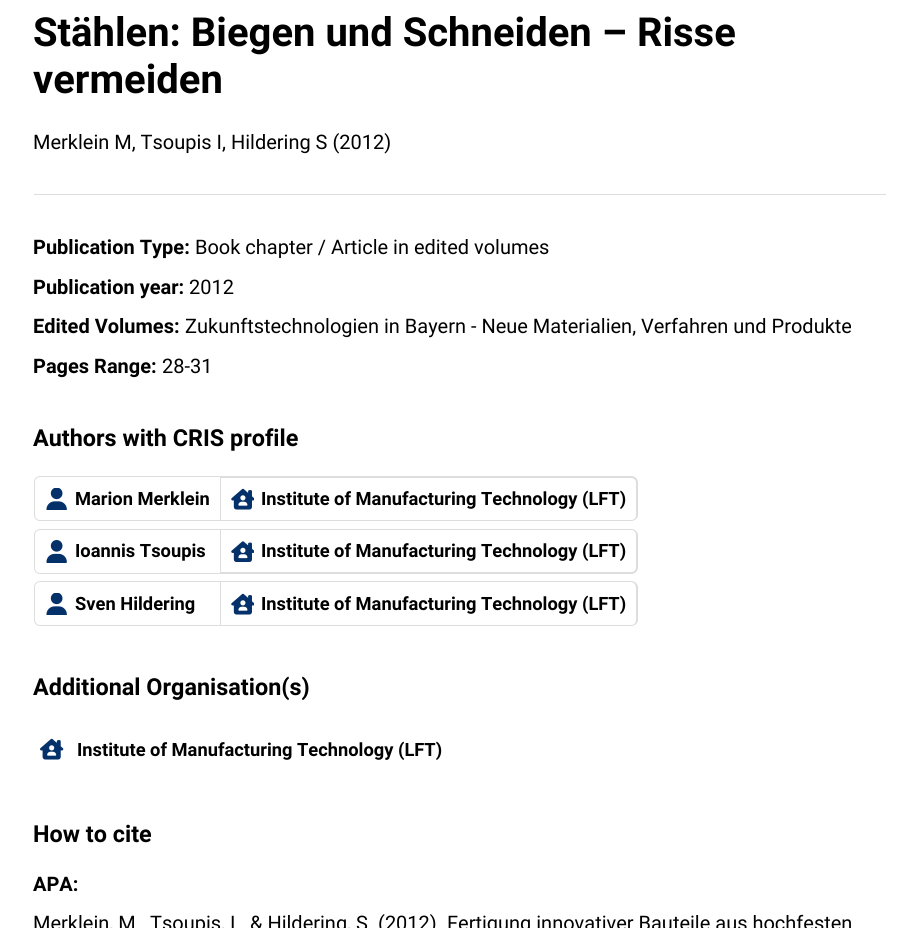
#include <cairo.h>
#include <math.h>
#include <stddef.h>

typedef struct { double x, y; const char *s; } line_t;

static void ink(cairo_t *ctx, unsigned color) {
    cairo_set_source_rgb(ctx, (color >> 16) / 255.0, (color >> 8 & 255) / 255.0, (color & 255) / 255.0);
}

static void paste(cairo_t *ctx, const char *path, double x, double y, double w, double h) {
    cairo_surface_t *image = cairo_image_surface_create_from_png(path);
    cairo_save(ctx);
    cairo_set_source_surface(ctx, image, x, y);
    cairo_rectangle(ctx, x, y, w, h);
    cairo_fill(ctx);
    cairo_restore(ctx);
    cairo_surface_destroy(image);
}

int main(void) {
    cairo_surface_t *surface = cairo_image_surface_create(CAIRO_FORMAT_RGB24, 920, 928);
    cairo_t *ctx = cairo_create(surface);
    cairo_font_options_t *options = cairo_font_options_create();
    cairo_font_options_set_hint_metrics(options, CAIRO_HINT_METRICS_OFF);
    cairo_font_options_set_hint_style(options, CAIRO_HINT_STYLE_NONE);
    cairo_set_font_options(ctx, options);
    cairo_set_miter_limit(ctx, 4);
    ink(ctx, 0xFFFFFF);
    cairo_paint(ctx);
    cairo_select_font_face(ctx, "Roboto", CAIRO_FONT_SLANT_NORMAL, CAIRO_FONT_WEIGHT_BOLD);
    cairo_set_font_size(ctx, 40);
    ink(ctx, 0x000000);
    cairo_move_to(ctx, 33, 46);
    cairo_show_text(ctx, "Stählen: Biegen und Schneiden – Risse");
    cairo_move_to(ctx, 33, 93);
    cairo_show_text(ctx, "vermeiden");
    cairo_select_font_face(ctx, "Roboto", CAIRO_FONT_SLANT_NORMAL, CAIRO_FONT_WEIGHT_NORMAL);
    cairo_set_font_size(ctx, 20);
    cairo_move_to(ctx, 33, 149);
    cairo_show_text(ctx, "Merklein M, Tsoupis I, Hildering S (2012)");
    ink(ctx, 0xDDDDDD);
    cairo_rectangle(ctx, 34, 194, 852, 1);
    cairo_fill(ctx);
    cairo_select_font_face(ctx, "Roboto", CAIRO_FONT_SLANT_NORMAL, CAIRO_FONT_WEIGHT_BOLD);
    ink(ctx, 0x000000);
    cairo_move_to(ctx, 33, 254);
    cairo_show_text(ctx, "Publication Type:");
    cairo_select_font_face(ctx, "Roboto", CAIRO_FONT_SLANT_NORMAL, CAIRO_FONT_WEIGHT_NORMAL);
    cairo_move_to(ctx, 195, 254);
    cairo_show_text(ctx, "Book chapter / Article in edited volumes");
    cairo_select_font_face(ctx, "Roboto", CAIRO_FONT_SLANT_NORMAL, CAIRO_FONT_WEIGHT_BOLD);
    cairo_move_to(ctx, 33, 294);
    cairo_show_text(ctx, "Publication year:");
    cairo_select_font_face(ctx, "Roboto", CAIRO_FONT_SLANT_NORMAL, CAIRO_FONT_WEIGHT_NORMAL);
    cairo_move_to(ctx, 189, 294);
    cairo_show_text(ctx, "2012");
    cairo_select_font_face(ctx, "Roboto", CAIRO_FONT_SLANT_NORMAL, CAIRO_FONT_WEIGHT_BOLD);
    cairo_move_to(ctx, 33, 333);
    cairo_show_text(ctx, "Edited Volumes:");
    cairo_select_font_face(ctx, "Roboto", CAIRO_FONT_SLANT_NORMAL, CAIRO_FONT_WEIGHT_NORMAL);
    cairo_move_to(ctx, 185, 333);
    cairo_show_text(ctx, "Zukunftstechnologien in Bayern - Neue Materialien, Verfahren und Produkte");
    cairo_select_font_face(ctx, "Roboto", CAIRO_FONT_SLANT_NORMAL, CAIRO_FONT_WEIGHT_BOLD);
    cairo_move_to(ctx, 33, 373);
    cairo_show_text(ctx, "Pages Range:");
    cairo_select_font_face(ctx, "Roboto", CAIRO_FONT_SLANT_NORMAL, CAIRO_FONT_WEIGHT_NORMAL);
    cairo_move_to(ctx, 162, 373);
    cairo_show_text(ctx, "28-31");
    cairo_select_font_face(ctx, "Roboto", CAIRO_FONT_SLANT_NORMAL, CAIRO_FONT_WEIGHT_BOLD);
    cairo_set_font_size(ctx, 23.4);
    cairo_move_to(ctx, 33, 446);
    cairo_show_text(ctx, "Authors with CRIS profile");
    cairo_new_path(ctx);
    cairo_move_to(ctx, 40, 476.5);
    cairo_line_to(ctx, 220.5, 476.5);
    cairo_line_to(ctx, 220.5, 520.5);
    cairo_line_to(ctx, 40, 520.5);
    cairo_curve_to(ctx, 37, 520.5, 34.5, 518, 34.5, 515);
    cairo_line_to(ctx, 34.5, 482);
    cairo_curve_to(ctx, 34.5, 479, 37, 476.5, 40, 476.5);
    cairo_close_path(ctx);
    ink(ctx, 0xDDDDDD);
    cairo_set_line_width(ctx, 1);
    cairo_stroke(ctx);
    paste(ctx, "media/1.png", 46, 488, 21, 22);
    cairo_set_font_size(ctx, 18.3);
    ink(ctx, 0x000000);
    cairo_move_to(ctx, 75, 505);
    cairo_show_text(ctx, "Marion Merklein");
    ink(ctx, 0xDDDDDD);
    cairo_set_fill_rule(ctx, CAIRO_FILL_RULE_EVEN_ODD);
    cairo_new_path(ctx);
    cairo_move_to(ctx, 221, 476);
    cairo_line_to(ctx, 631, 476);
    cairo_curve_to(ctx, 635, 476, 638, 479, 638, 483);
    cairo_line_to(ctx, 638, 515);
    cairo_curve_to(ctx, 638, 518, 635, 521, 631, 521);
    cairo_line_to(ctx, 221, 521);
    cairo_close_path(ctx);
    cairo_move_to(ctx, 221, 478);
    cairo_line_to(ctx, 631, 478);
    cairo_curve_to(ctx, 634, 478, 636, 480, 636, 483);
    cairo_line_to(ctx, 636, 515);
    cairo_curve_to(ctx, 636, 518, 634, 520, 631, 520);
    cairo_line_to(ctx, 221, 520);
    cairo_close_path(ctx);
    cairo_fill(ctx);
    paste(ctx, "media/2.png", 231, 488, 23, 22);
    ink(ctx, 0x000000);
    cairo_move_to(ctx, 261, 505);
    cairo_show_text(ctx, "Institute of Manufacturing Technology (LFT)");
    cairo_new_path(ctx);
    cairo_move_to(ctx, 40, 529.5);
    cairo_line_to(ctx, 220.5, 529.5);
    cairo_line_to(ctx, 220.5, 573.5);
    cairo_line_to(ctx, 40, 573.5);
    cairo_curve_to(ctx, 37, 573.5, 34.5, 571, 34.5, 568);
    cairo_line_to(ctx, 34.5, 535);
    cairo_curve_to(ctx, 34.5, 532, 37, 529.5, 40, 529.5);
    cairo_close_path(ctx);
    ink(ctx, 0xDDDDDD);
    cairo_stroke(ctx);
    paste(ctx, "media/3.png", 46, 540, 21, 23);
    ink(ctx, 0x000000);
    cairo_move_to(ctx, 75, 557);
    cairo_show_text(ctx, "Ioannis Tsoupis");
    ink(ctx, 0xDDDDDD);
    cairo_new_path(ctx);
    cairo_move_to(ctx, 221, 529);
    cairo_line_to(ctx, 631, 529);
    cairo_curve_to(ctx, 635, 529, 638, 532, 638, 535);
    cairo_line_to(ctx, 638, 567);
    cairo_curve_to(ctx, 638, 571, 635, 574, 631, 574);
    cairo_line_to(ctx, 221, 574);
    cairo_close_path(ctx);
    cairo_move_to(ctx, 221, 530);
    cairo_line_to(ctx, 631, 530);
    cairo_curve_to(ctx, 634, 530, 636, 532, 636, 535);
    cairo_line_to(ctx, 636, 567);
    cairo_curve_to(ctx, 636, 570, 634, 572, 631, 572);
    cairo_line_to(ctx, 221, 572);
    cairo_close_path(ctx);
    cairo_fill(ctx);
    paste(ctx, "media/4.png", 231, 541, 23, 21);
    ink(ctx, 0x000000);
    cairo_move_to(ctx, 261, 557);
    cairo_show_text(ctx, "Institute of Manufacturing Technology (LFT)");
    cairo_new_path(ctx);
    cairo_move_to(ctx, 40, 581.5);
    cairo_line_to(ctx, 220.5, 581.5);
    cairo_line_to(ctx, 220.5, 625.5);
    cairo_line_to(ctx, 40, 625.5);
    cairo_curve_to(ctx, 37, 625.5, 34.5, 623, 34.5, 620);
    cairo_line_to(ctx, 34.5, 587);
    cairo_curve_to(ctx, 34.5, 584, 37, 581.5, 40, 581.5);
    cairo_close_path(ctx);
    ink(ctx, 0xDDDDDD);
    cairo_stroke(ctx);
    paste(ctx, "media/1.png", 46, 593, 21, 22);
    ink(ctx, 0x000000);
    cairo_move_to(ctx, 75, 610);
    cairo_show_text(ctx, "Sven Hildering");
    ink(ctx, 0xDDDDDD);
    cairo_new_path(ctx);
    cairo_move_to(ctx, 221, 581);
    cairo_line_to(ctx, 631, 581);
    cairo_curve_to(ctx, 635, 581, 638, 584, 638, 588);
    cairo_line_to(ctx, 638, 620);
    cairo_curve_to(ctx, 638, 623, 635, 626, 631, 626);
    cairo_line_to(ctx, 221, 626);
    cairo_close_path(ctx);
    cairo_move_to(ctx, 221, 582);
    cairo_line_to(ctx, 631, 582);
    cairo_curve_to(ctx, 634, 582, 636, 585, 636, 588);
    cairo_line_to(ctx, 636, 620);
    cairo_curve_to(ctx, 636, 623, 634, 625, 631, 625);
    cairo_line_to(ctx, 221, 625);
    cairo_close_path(ctx);
    cairo_fill(ctx);
    paste(ctx, "media/5.png", 231, 593, 23, 22);
    ink(ctx, 0x000000);
    cairo_move_to(ctx, 261, 610);
    cairo_show_text(ctx, "Institute of Manufacturing Technology (LFT)");
    cairo_set_font_size(ctx, 23.4);
    cairo_move_to(ctx, 33, 695);
    cairo_show_text(ctx, "Additional Organisation(s)");
    paste(ctx, "media/6.png", 40, 738, 24, 22);
    cairo_set_font_size(ctx, 18.3);
    cairo_move_to(ctx, 77, 756);
    cairo_show_text(ctx, "Institute of Manufacturing Technology (LFT)");
    cairo_set_font_size(ctx, 23.4);
    cairo_move_to(ctx, 33, 842);
    cairo_show_text(ctx, "How to cite");
    cairo_set_font_size(ctx, 20);
    cairo_move_to(ctx, 33, 891);
    cairo_show_text(ctx, "APA:");
    cairo_select_font_face(ctx, "Roboto", CAIRO_FONT_SLANT_NORMAL, CAIRO_FONT_WEIGHT_NORMAL);
    {
        static const line_t items[] = {
            {33, 930, "Merklein, M"},
            {150, 930, "Tsoupis, I"},
            {250, 930, "& Hildering, S. (2012). Fertigung innovativer Bauteile aus hochfesten"},
        };
        for (size_t i = 0; i < sizeof items / sizeof *items; i++) {
            cairo_move_to(ctx, items[i].x, items[i].y);
            cairo_show_text(ctx, items[i].s);
        }
    }
    cairo_surface_write_to_png(surface, "image.png");
    cairo_font_options_destroy(options);
    cairo_destroy(ctx);
    cairo_surface_destroy(surface);
    return 0;
}
